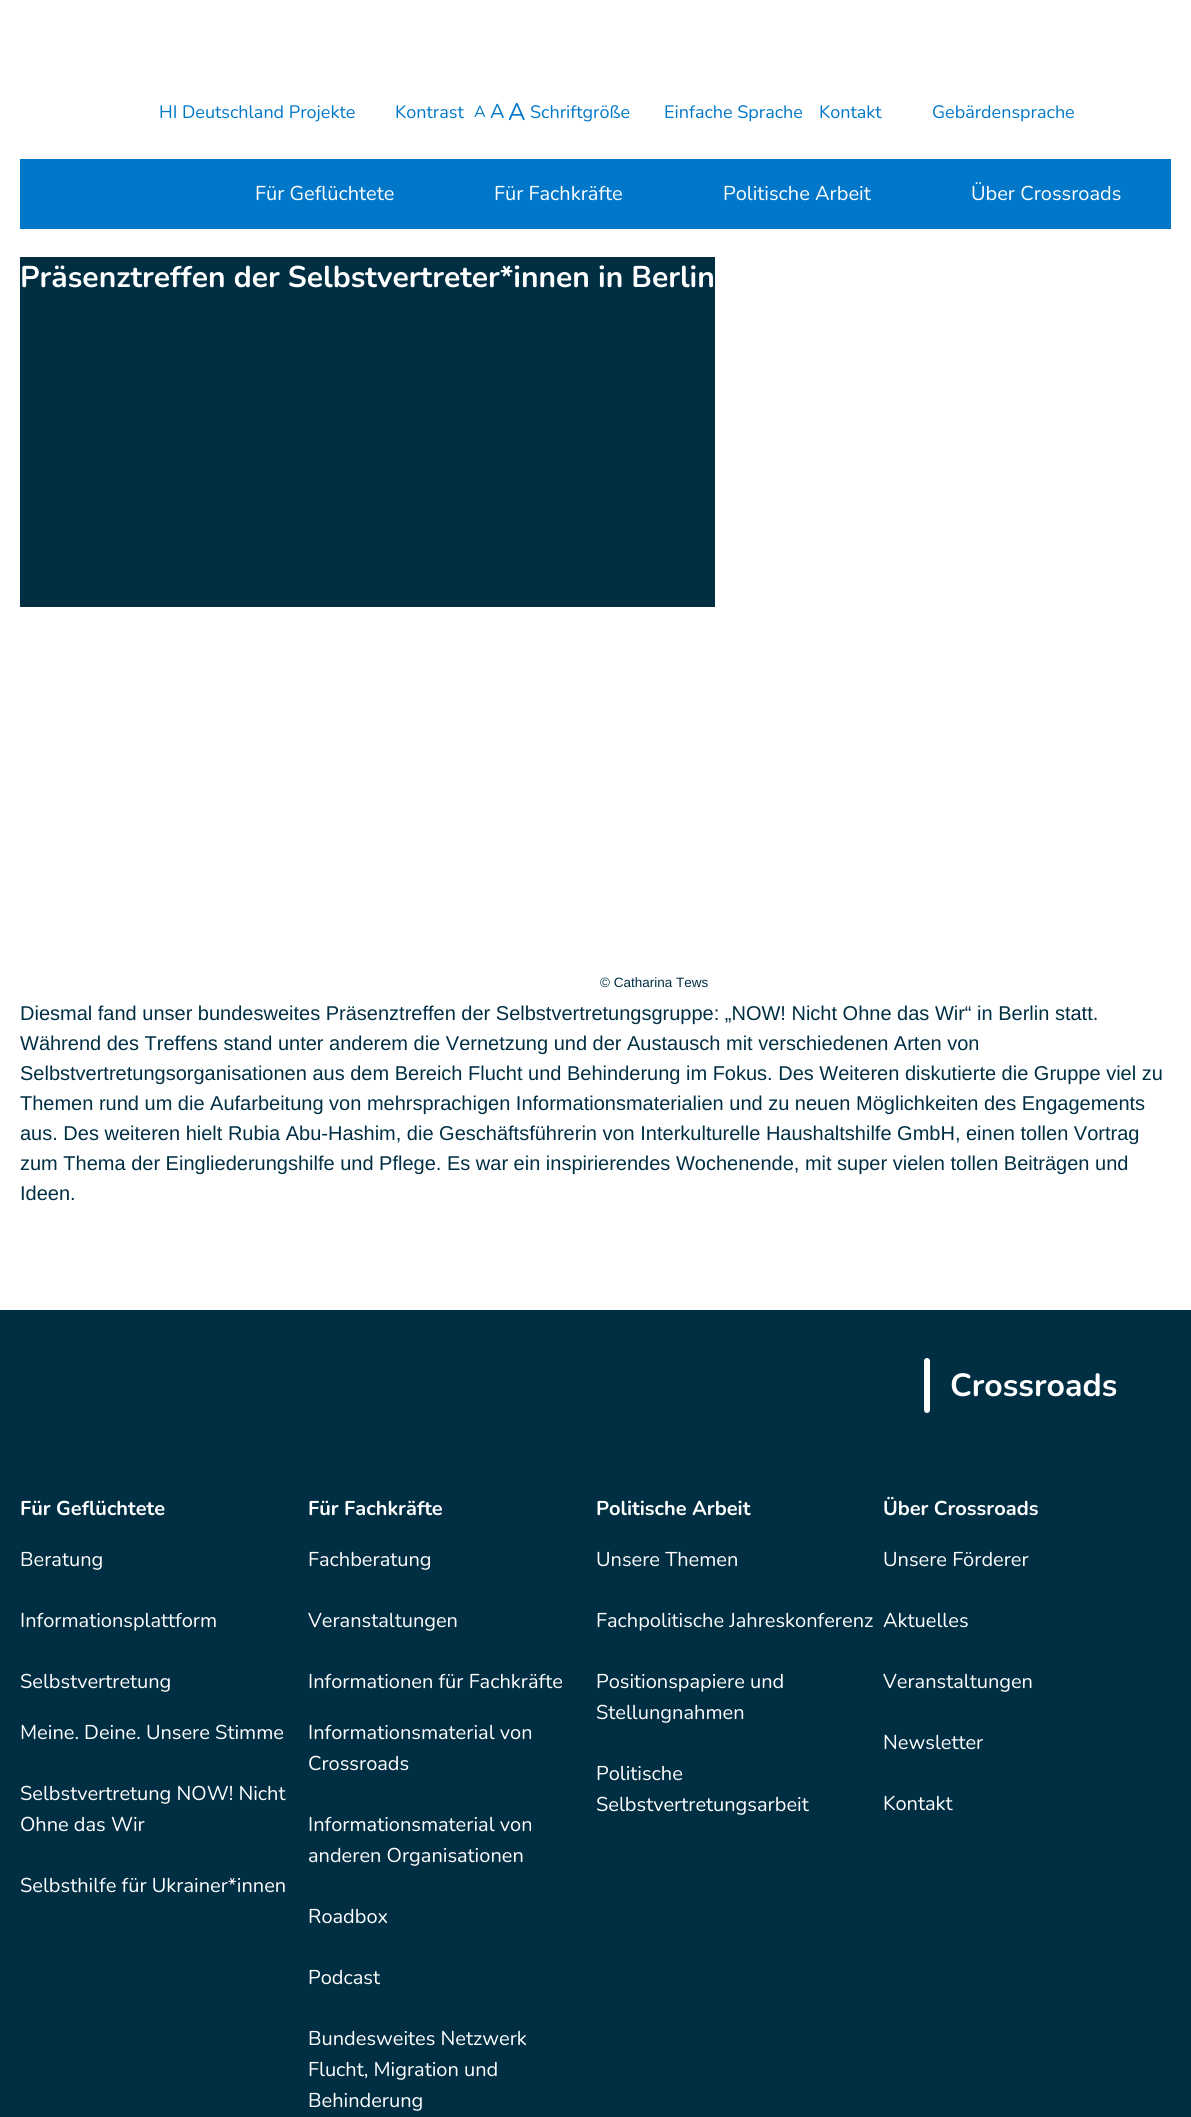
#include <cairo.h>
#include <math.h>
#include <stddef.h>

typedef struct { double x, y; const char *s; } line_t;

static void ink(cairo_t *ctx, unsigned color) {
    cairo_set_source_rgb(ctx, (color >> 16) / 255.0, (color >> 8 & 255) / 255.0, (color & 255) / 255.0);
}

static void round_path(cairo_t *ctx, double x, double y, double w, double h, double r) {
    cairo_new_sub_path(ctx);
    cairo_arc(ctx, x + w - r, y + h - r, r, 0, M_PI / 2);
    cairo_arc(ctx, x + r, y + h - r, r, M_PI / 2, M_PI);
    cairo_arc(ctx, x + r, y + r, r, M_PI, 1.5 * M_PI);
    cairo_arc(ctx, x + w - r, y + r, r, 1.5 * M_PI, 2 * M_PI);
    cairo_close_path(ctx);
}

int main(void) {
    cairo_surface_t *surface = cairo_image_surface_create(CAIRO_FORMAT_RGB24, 1191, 2117);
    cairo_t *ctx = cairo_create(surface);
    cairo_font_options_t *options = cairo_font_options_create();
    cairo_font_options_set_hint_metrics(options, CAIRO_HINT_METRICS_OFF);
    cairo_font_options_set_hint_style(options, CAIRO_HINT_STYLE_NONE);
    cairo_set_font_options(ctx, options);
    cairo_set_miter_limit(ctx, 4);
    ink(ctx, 0xFFFFFF);
    cairo_paint(ctx);
    cairo_select_font_face(ctx, "Nunito", CAIRO_FONT_SLANT_NORMAL, CAIRO_FONT_WEIGHT_NORMAL);
    cairo_set_font_size(ctx, 18);
    ink(ctx, 0x0077C8);
    cairo_move_to(ctx, 159, 118);
    cairo_show_text(ctx, "HI Deutschland Projekte");
    cairo_move_to(ctx, 395, 118);
    cairo_show_text(ctx, "Kontrast");
    cairo_set_font_size(ctx, 16);
    cairo_move_to(ctx, 474, 117);
    cairo_show_text(ctx, "A");
    cairo_set_font_size(ctx, 20);
    cairo_move_to(ctx, 490, 118);
    cairo_show_text(ctx, "A");
    cairo_set_font_size(ctx, 24);
    cairo_move_to(ctx, 508, 120);
    cairo_show_text(ctx, "A");
    cairo_set_font_size(ctx, 18);
    {
        static const line_t items[] = {
            {530, 118, "Schriftgröße"},
            {664, 118, "Einfache Sprache"},
            {819, 118, "Kontakt"},
            {932, 118, "Gebärdensprache"},
        };
        for (size_t i = 0; i < sizeof items / sizeof *items; i++) {
            cairo_move_to(ctx, items[i].x, items[i].y);
            cairo_show_text(ctx, items[i].s);
        }
    }
    cairo_rectangle(ctx, 20, 159, 1151, 70);
    cairo_fill(ctx);
    cairo_set_font_size(ctx, 20);
    ink(ctx, 0xFFFFFF);
    {
        static const line_t items[] = {
            {255, 200, "Für Geflüchtete"},
            {494, 200, "Für Fachkräfte"},
            {723, 200, "Politische Arbeit"},
            {971, 200, "Über Crossroads"},
        };
        for (size_t i = 0; i < sizeof items / sizeof *items; i++) {
            cairo_move_to(ctx, items[i].x, items[i].y);
            cairo_show_text(ctx, items[i].s);
        }
    }
    ink(ctx, 0x002E43);
    cairo_rectangle(ctx, 20, 257, 695, 350);
    cairo_fill(ctx);
    cairo_select_font_face(ctx, "Nunito", CAIRO_FONT_SLANT_NORMAL, CAIRO_FONT_WEIGHT_BOLD);
    cairo_set_font_size(ctx, 30);
    ink(ctx, 0xFFFFFF);
    cairo_move_to(ctx, 20, 287);
    cairo_show_text(ctx, "Präsenztreffen der Selbstvertreter*innen in Berlin");
    cairo_select_font_face(ctx, "Liberation Sans", CAIRO_FONT_SLANT_NORMAL, CAIRO_FONT_WEIGHT_NORMAL);
    cairo_set_font_size(ctx, 13.5);
    ink(ctx, 0x002E43);
    cairo_move_to(ctx, 600, 987);
    cairo_show_text(ctx, "© Catharina Tews");
    cairo_set_font_size(ctx, 20);
    {
        static const line_t items[] = {
            {20, 1020, "Diesmal fand unser bundesweites Präsenztreffen der Selbstvertretungsgruppe: „NOW! Nicht Ohne das Wir“ in Berlin statt."},
            {20, 1050, "Während des Treffens stand unter anderem die Vernetzung und der Austausch mit verschiedenen Arten von"},
            {20, 1080, "Selbstvertretungsorganisationen aus dem Bereich Flucht und Behinderung im Fokus. Des Weiteren diskutierte die Gruppe viel zu"},
            {20, 1110, "Themen rund um die Aufarbeitung von mehrsprachigen Informationsmaterialien und zu neuen Möglichkeiten des Engagements"},
            {20, 1140, "aus. Des weiteren hielt Rubia Abu-Hashim, die Geschäftsführerin von Interkulturelle Haushaltshilfe GmbH, einen tollen Vortrag"},
            {20, 1170, "zum Thema der Eingliederungshilfe und Pflege. Es war ein inspirierendes Wochenende, mit super vielen tollen Beiträgen und"},
            {20, 1200, "Ideen."},
        };
        for (size_t i = 0; i < sizeof items / sizeof *items; i++) {
            cairo_move_to(ctx, items[i].x, items[i].y);
            cairo_show_text(ctx, items[i].s);
        }
    }
    cairo_rectangle(ctx, 0, 1310, 1191, 807);
    cairo_fill(ctx);
    ink(ctx, 0xFFFFFF);
    round_path(ctx, 924, 1358, 6, 55, 3);
    cairo_fill(ctx);
    cairo_select_font_face(ctx, "Nunito", CAIRO_FONT_SLANT_NORMAL, CAIRO_FONT_WEIGHT_BOLD);
    cairo_set_font_size(ctx, 32);
    cairo_move_to(ctx, 950, 1396);
    cairo_show_text(ctx, "Crossroads");
    cairo_set_font_size(ctx, 20);
    cairo_move_to(ctx, 20, 1515);
    cairo_show_text(ctx, "Für Geflüchtete");
    cairo_select_font_face(ctx, "Nunito", CAIRO_FONT_SLANT_NORMAL, CAIRO_FONT_WEIGHT_NORMAL);
    {
        static const line_t items[] = {
            {20, 1566, "Beratung"},
            {20, 1627, "Informationsplattform"},
            {20, 1688, "Selbstvertretung"},
            {20, 1739, "Meine. Deine. Unsere Stimme"},
            {20, 1800, "Selbstvertretung NOW! Nicht"},
            {20, 1831, "Ohne das Wir"},
            {20, 1892, "Selbsthilfe für Ukrainer*innen"},
        };
        for (size_t i = 0; i < sizeof items / sizeof *items; i++) {
            cairo_move_to(ctx, items[i].x, items[i].y);
            cairo_show_text(ctx, items[i].s);
        }
    }
    cairo_select_font_face(ctx, "Nunito", CAIRO_FONT_SLANT_NORMAL, CAIRO_FONT_WEIGHT_BOLD);
    cairo_move_to(ctx, 308, 1515);
    cairo_show_text(ctx, "Für Fachkräfte");
    cairo_select_font_face(ctx, "Nunito", CAIRO_FONT_SLANT_NORMAL, CAIRO_FONT_WEIGHT_NORMAL);
    {
        static const line_t items[] = {
            {308, 1566, "Fachberatung"},
            {308, 1627, "Veranstaltungen"},
            {308, 1688, "Informationen für Fachkräfte"},
            {308, 1739, "Informationsmaterial von"},
            {308, 1770, "Crossroads"},
            {308, 1831, "Informationsmaterial von"},
            {308, 1862, "anderen Organisationen"},
            {308, 1923, "Roadbox"},
            {308, 1984, "Podcast"},
            {308, 2045, "Bundesweites Netzwerk"},
            {308, 2076, "Flucht, Migration und"},
            {308, 2107, "Behinderung"},
        };
        for (size_t i = 0; i < sizeof items / sizeof *items; i++) {
            cairo_move_to(ctx, items[i].x, items[i].y);
            cairo_show_text(ctx, items[i].s);
        }
    }
    cairo_select_font_face(ctx, "Nunito", CAIRO_FONT_SLANT_NORMAL, CAIRO_FONT_WEIGHT_BOLD);
    cairo_move_to(ctx, 596, 1515);
    cairo_show_text(ctx, "Politische Arbeit");
    cairo_select_font_face(ctx, "Nunito", CAIRO_FONT_SLANT_NORMAL, CAIRO_FONT_WEIGHT_NORMAL);
    {
        static const line_t items[] = {
            {596, 1566, "Unsere Themen"},
            {596, 1627, "Fachpolitische Jahreskonferenz"},
            {596, 1688, "Positionspapiere und"},
            {596, 1719, "Stellungnahmen"},
            {596, 1780, "Politische"},
            {596, 1811, "Selbstvertretungsarbeit"},
        };
        for (size_t i = 0; i < sizeof items / sizeof *items; i++) {
            cairo_move_to(ctx, items[i].x, items[i].y);
            cairo_show_text(ctx, items[i].s);
        }
    }
    cairo_select_font_face(ctx, "Nunito", CAIRO_FONT_SLANT_NORMAL, CAIRO_FONT_WEIGHT_BOLD);
    cairo_move_to(ctx, 883, 1515);
    cairo_show_text(ctx, "Über Crossroads");
    cairo_select_font_face(ctx, "Nunito", CAIRO_FONT_SLANT_NORMAL, CAIRO_FONT_WEIGHT_NORMAL);
    {
        static const line_t items[] = {
            {883, 1566, "Unsere Förderer"},
            {883, 1627, "Aktuelles"},
            {883, 1688, "Veranstaltungen"},
            {883, 1749, "Newsletter"},
            {883, 1810, "Kontakt"},
        };
        for (size_t i = 0; i < sizeof items / sizeof *items; i++) {
            cairo_move_to(ctx, items[i].x, items[i].y);
            cairo_show_text(ctx, items[i].s);
        }
    }
    cairo_surface_write_to_png(surface, "image.png");
    cairo_font_options_destroy(options);
    cairo_destroy(ctx);
    cairo_surface_destroy(surface);
    return 0;
}
